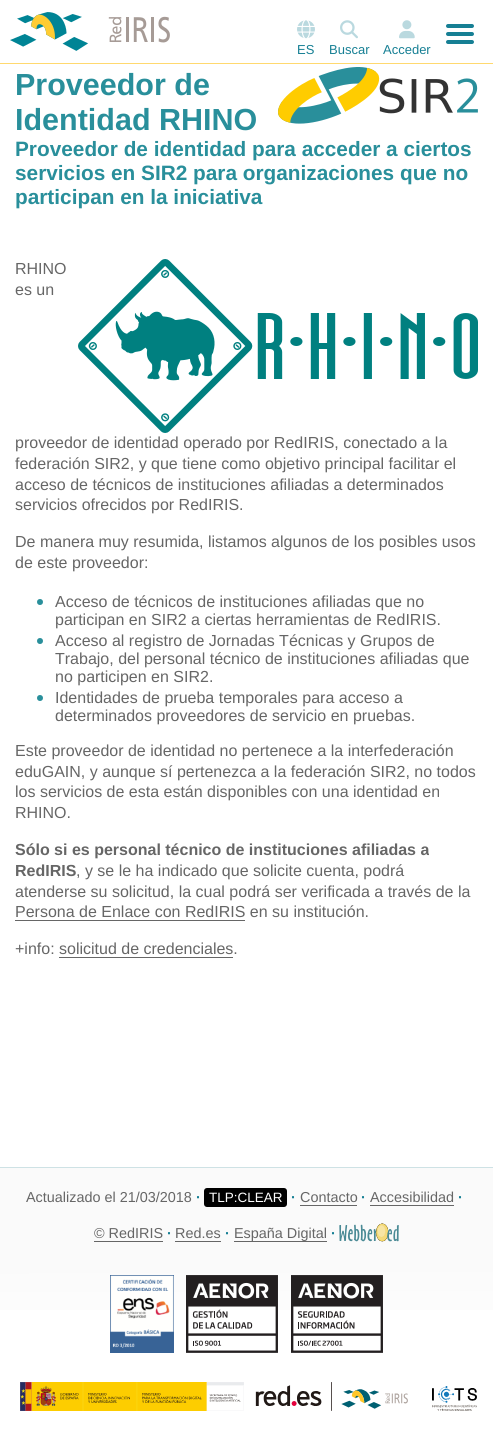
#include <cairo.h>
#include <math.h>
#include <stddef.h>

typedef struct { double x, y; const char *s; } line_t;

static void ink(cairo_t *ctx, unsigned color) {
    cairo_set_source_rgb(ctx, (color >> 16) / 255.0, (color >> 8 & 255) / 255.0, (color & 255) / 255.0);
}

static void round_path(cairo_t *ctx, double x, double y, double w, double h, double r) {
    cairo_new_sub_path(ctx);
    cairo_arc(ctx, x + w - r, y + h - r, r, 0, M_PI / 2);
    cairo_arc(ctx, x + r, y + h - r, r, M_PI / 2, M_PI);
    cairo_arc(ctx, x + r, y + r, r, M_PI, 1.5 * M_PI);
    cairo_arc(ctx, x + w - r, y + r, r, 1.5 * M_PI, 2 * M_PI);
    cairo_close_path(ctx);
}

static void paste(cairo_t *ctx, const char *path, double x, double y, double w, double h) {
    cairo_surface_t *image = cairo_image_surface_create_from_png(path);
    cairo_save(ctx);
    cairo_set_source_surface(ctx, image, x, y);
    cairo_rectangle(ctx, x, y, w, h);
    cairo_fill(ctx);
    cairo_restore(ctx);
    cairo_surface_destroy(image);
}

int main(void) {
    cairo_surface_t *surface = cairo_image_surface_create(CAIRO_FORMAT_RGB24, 493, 1451);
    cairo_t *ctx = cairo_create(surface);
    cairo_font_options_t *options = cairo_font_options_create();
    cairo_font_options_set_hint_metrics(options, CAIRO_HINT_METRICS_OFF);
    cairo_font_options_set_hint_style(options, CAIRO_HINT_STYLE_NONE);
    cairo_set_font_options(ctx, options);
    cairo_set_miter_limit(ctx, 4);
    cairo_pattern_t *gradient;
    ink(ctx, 0xFFFFFF);
    cairo_paint(ctx);
    ink(ctx, 0xFFD96F);
    cairo_rectangle(ctx, 0, 63, 493, 1);
    cairo_fill(ctx);
    paste(ctx, "media/1.png", 10, 12, 160, 39);
    paste(ctx, "media/2.png", 446, 24, 28, 20);
    paste(ctx, "media/3.png", 297, 20, 18, 19);
    cairo_select_font_face(ctx, "Liberation Sans", CAIRO_FONT_SLANT_NORMAL, CAIRO_FONT_WEIGHT_NORMAL);
    cairo_set_font_size(ctx, 13);
    ink(ctx, 0x167F94);
    cairo_move_to(ctx, 297, 54);
    cairo_show_text(ctx, "ES");
    paste(ctx, "media/4.png", 340, 20, 18, 19);
    cairo_move_to(ctx, 329, 54);
    cairo_show_text(ctx, "Buscar");
    paste(ctx, "media/5.png", 399, 20, 16, 19);
    cairo_move_to(ctx, 383, 54);
    cairo_show_text(ctx, "Acceder");
    cairo_select_font_face(ctx, "Liberation Sans", CAIRO_FONT_SLANT_NORMAL, CAIRO_FONT_WEIGHT_BOLD);
    cairo_set_font_size(ctx, 30.5);
    ink(ctx, 0x298F9B);
    cairo_move_to(ctx, 15, 95);
    cairo_show_text(ctx, "Proveedor de");
    cairo_move_to(ctx, 15, 130);
    cairo_show_text(ctx, "Identidad RHINO");
    paste(ctx, "media/6.png", 278, 67, 200, 57);
    cairo_set_font_size(ctx, 20.8);
    {
        static const line_t items[] = {
            {15, 156, "Proveedor de identidad para acceder a ciertos"},
            {15, 180, "servicios en SIR2 para organizaciones que no"},
            {15, 204, "participan en la iniciativa"},
        };
        for (size_t i = 0; i < sizeof items / sizeof *items; i++) {
            cairo_move_to(ctx, items[i].x, items[i].y);
            cairo_show_text(ctx, items[i].s);
        }
    }
    cairo_select_font_face(ctx, "Liberation Sans", CAIRO_FONT_SLANT_NORMAL, CAIRO_FONT_WEIGHT_NORMAL);
    cairo_set_font_size(ctx, 16);
    ink(ctx, 0x666666);
    cairo_move_to(ctx, 15, 274);
    cairo_show_text(ctx, "RHINO");
    paste(ctx, "media/7.png", 78, 259, 400, 174);
    {
        static const line_t items[] = {
            {15, 295, "es un"},
            {15, 448, "proveedor de identidad operado por RedIRIS, conectado a la"},
            {15, 469, "federación SIR2, y que tiene como objetivo principal facilitar el"},
            {15, 490, "acceso de técnicos de instituciones afiliadas a determinados"},
            {15, 510, "servicios ofrecidos por RedIRIS."},
            {15, 547, "De manera muy resumida, listamos algunos de los posibles usos"},
            {15, 568, "de este proveedor:"},
        };
        for (size_t i = 0; i < sizeof items / sizeof *items; i++) {
            cairo_move_to(ctx, items[i].x, items[i].y);
            cairo_show_text(ctx, items[i].s);
        }
    }
    ink(ctx, 0x298F9B);
    cairo_new_path(ctx);
    cairo_arc(ctx, 40, 602, 3, 0, 2 * M_PI);
    cairo_fill(ctx);
    ink(ctx, 0x666666);
    cairo_move_to(ctx, 55, 607);
    cairo_show_text(ctx, "Acceso de técnicos de instituciones afiliadas que no");
    cairo_move_to(ctx, 55, 625);
    cairo_show_text(ctx, "participan en SIR2 a ciertas herramientas de RedIRIS.");
    ink(ctx, 0x298F9B);
    cairo_new_path(ctx);
    cairo_arc(ctx, 40, 641, 3, 0, 2 * M_PI);
    cairo_fill(ctx);
    ink(ctx, 0x666666);
    {
        static const line_t items[] = {
            {55, 646, "Acceso al registro de Jornadas Técnicas y Grupos de"},
            {55, 664, "Trabajo, del personal técnico de instituciones afiliadas que"},
            {55, 682, "no participen en SIR2."},
        };
        for (size_t i = 0; i < sizeof items / sizeof *items; i++) {
            cairo_move_to(ctx, items[i].x, items[i].y);
            cairo_show_text(ctx, items[i].s);
        }
    }
    ink(ctx, 0x298F9B);
    cairo_new_path(ctx);
    cairo_arc(ctx, 40, 698, 3, 0, 2 * M_PI);
    cairo_fill(ctx);
    ink(ctx, 0x666666);
    {
        static const line_t items[] = {
            {55, 703, "Identidades de prueba temporales para acceso a"},
            {55, 721, "determinados proveedores de servicio en pruebas."},
            {15, 756, "Este proveedor de identidad no pertenece a la interfederación"},
            {15, 777, "eduGAIN, y aunque sí pertenezca a la federación SIR2, no todos"},
            {15, 797, "los servicios de esta están disponibles con una identidad en"},
            {15, 818, "RHINO."},
        };
        for (size_t i = 0; i < sizeof items / sizeof *items; i++) {
            cairo_move_to(ctx, items[i].x, items[i].y);
            cairo_show_text(ctx, items[i].s);
        }
    }
    cairo_select_font_face(ctx, "Liberation Sans", CAIRO_FONT_SLANT_NORMAL, CAIRO_FONT_WEIGHT_BOLD);
    cairo_move_to(ctx, 15, 855);
    cairo_show_text(ctx, "Sólo si es personal técnico de instituciones afiliadas a");
    cairo_move_to(ctx, 15, 876);
    cairo_show_text(ctx, "RedIRIS");
    cairo_select_font_face(ctx, "Liberation Sans", CAIRO_FONT_SLANT_NORMAL, CAIRO_FONT_WEIGHT_NORMAL);
    {
        static const line_t items[] = {
            {76, 876, ", y se le ha indicado que solicite cuenta, podrá"},
            {15, 897, "atenderse su solicitud, la cual podrá ser verificada a través de la"},
            {15, 917, "Persona de Enlace con RedIRIS en su institución."},
        };
        for (size_t i = 0; i < sizeof items / sizeof *items; i++) {
            cairo_move_to(ctx, items[i].x, items[i].y);
            cairo_show_text(ctx, items[i].s);
        }
    }
    cairo_rectangle(ctx, 15, 920, 230, 1);
    cairo_fill(ctx);
    cairo_move_to(ctx, 15, 954);
    cairo_show_text(ctx, "+info: solicitud de credenciales.");
    cairo_rectangle(ctx, 59, 957, 174, 1);
    cairo_fill(ctx);
    gradient = cairo_pattern_create_linear(246, 1168, 247, 1451);
    cairo_pattern_add_color_stop_rgba(gradient, 0, 0.98, 0.98, 0.98, 1);
    cairo_pattern_add_color_stop_rgba(gradient, 0.33, 0.98, 0.98, 0.98, 1);
    cairo_pattern_add_color_stop_rgba(gradient, 0.67, 1, 1, 1, 1);
    cairo_pattern_add_color_stop_rgba(gradient, 1, 1, 1, 1, 1);
    cairo_set_source(ctx, gradient);
    cairo_pattern_destroy(gradient);
    cairo_rectangle(ctx, 0, 1168, 493, 142);
    cairo_fill(ctx);
    ink(ctx, 0xCEE2E5);
    cairo_rectangle(ctx, 0, 1167, 493, 1);
    cairo_fill(ctx);
    cairo_set_font_size(ctx, 14.4);
    ink(ctx, 0x666666);
    cairo_move_to(ctx, 26, 1202);
    cairo_show_text(ctx, "Actualizado el 21/03/2018");
    cairo_select_font_face(ctx, "Liberation Sans", CAIRO_FONT_SLANT_NORMAL, CAIRO_FONT_WEIGHT_BOLD);
    ink(ctx, 0x167F94);
    cairo_move_to(ctx, 196, 1202);
    cairo_show_text(ctx, "·");
    ink(ctx, 0x000000);
    round_path(ctx, 204, 1188, 83, 19, 3);
    cairo_fill(ctx);
    cairo_select_font_face(ctx, "Liberation Sans", CAIRO_FONT_SLANT_NORMAL, CAIRO_FONT_WEIGHT_NORMAL);
    cairo_set_font_size(ctx, 13.5);
    ink(ctx, 0xFFFFFF);
    cairo_move_to(ctx, 209, 1202);
    cairo_show_text(ctx, "TLP:CLEAR");
    cairo_select_font_face(ctx, "Liberation Sans", CAIRO_FONT_SLANT_NORMAL, CAIRO_FONT_WEIGHT_BOLD);
    cairo_set_font_size(ctx, 14.4);
    ink(ctx, 0x167F94);
    cairo_move_to(ctx, 291, 1202);
    cairo_show_text(ctx, "·");
    cairo_select_font_face(ctx, "Liberation Sans", CAIRO_FONT_SLANT_NORMAL, CAIRO_FONT_WEIGHT_NORMAL);
    ink(ctx, 0x666666);
    cairo_move_to(ctx, 300, 1202);
    cairo_show_text(ctx, "Contacto");
    cairo_rectangle(ctx, 300, 1205, 57, 1);
    cairo_fill(ctx);
    cairo_select_font_face(ctx, "Liberation Sans", CAIRO_FONT_SLANT_NORMAL, CAIRO_FONT_WEIGHT_BOLD);
    ink(ctx, 0x167F94);
    cairo_move_to(ctx, 361, 1202);
    cairo_show_text(ctx, "·");
    cairo_select_font_face(ctx, "Liberation Sans", CAIRO_FONT_SLANT_NORMAL, CAIRO_FONT_WEIGHT_NORMAL);
    ink(ctx, 0x666666);
    cairo_move_to(ctx, 370, 1202);
    cairo_show_text(ctx, "Accesibilidad");
    cairo_rectangle(ctx, 370, 1205, 84, 1);
    cairo_fill(ctx);
    cairo_select_font_face(ctx, "Liberation Sans", CAIRO_FONT_SLANT_NORMAL, CAIRO_FONT_WEIGHT_BOLD);
    ink(ctx, 0x167F94);
    cairo_move_to(ctx, 458, 1202);
    cairo_show_text(ctx, "·");
    cairo_select_font_face(ctx, "Liberation Sans", CAIRO_FONT_SLANT_NORMAL, CAIRO_FONT_WEIGHT_NORMAL);
    ink(ctx, 0x666666);
    cairo_move_to(ctx, 94, 1238);
    cairo_show_text(ctx, "© RedIRIS");
    cairo_rectangle(ctx, 94, 1241, 69, 1);
    cairo_fill(ctx);
    cairo_select_font_face(ctx, "Liberation Sans", CAIRO_FONT_SLANT_NORMAL, CAIRO_FONT_WEIGHT_BOLD);
    ink(ctx, 0x167F94);
    cairo_move_to(ctx, 167, 1238);
    cairo_show_text(ctx, "·");
    cairo_select_font_face(ctx, "Liberation Sans", CAIRO_FONT_SLANT_NORMAL, CAIRO_FONT_WEIGHT_NORMAL);
    ink(ctx, 0x666666);
    cairo_move_to(ctx, 175, 1238);
    cairo_show_text(ctx, "Red.es");
    cairo_rectangle(ctx, 175, 1241, 46, 1);
    cairo_fill(ctx);
    cairo_select_font_face(ctx, "Liberation Sans", CAIRO_FONT_SLANT_NORMAL, CAIRO_FONT_WEIGHT_BOLD);
    ink(ctx, 0x167F94);
    cairo_move_to(ctx, 225, 1238);
    cairo_show_text(ctx, "·");
    cairo_select_font_face(ctx, "Liberation Sans", CAIRO_FONT_SLANT_NORMAL, CAIRO_FONT_WEIGHT_NORMAL);
    ink(ctx, 0x666666);
    cairo_move_to(ctx, 234, 1238);
    cairo_show_text(ctx, "España Digital");
    cairo_rectangle(ctx, 234, 1241, 93, 1);
    cairo_fill(ctx);
    cairo_select_font_face(ctx, "Liberation Sans", CAIRO_FONT_SLANT_NORMAL, CAIRO_FONT_WEIGHT_BOLD);
    ink(ctx, 0x167F94);
    cairo_move_to(ctx, 331, 1238);
    cairo_show_text(ctx, "·");
    paste(ctx, "media/8.png", 339, 1223, 60, 19);
    paste(ctx, "media/9.png", 110, 1275, 64, 78);
    paste(ctx, "media/10.png", 186, 1275, 92, 78);
    paste(ctx, "media/11.png", 291, 1275, 92, 78);
    paste(ctx, "media/12.png", 20, 1382, 388, 29);
    paste(ctx, "media/13.png", 432, 1386, 45, 25);
    cairo_surface_write_to_png(surface, "image.png");
    cairo_font_options_destroy(options);
    cairo_destroy(ctx);
    cairo_surface_destroy(surface);
    return 0;
}
